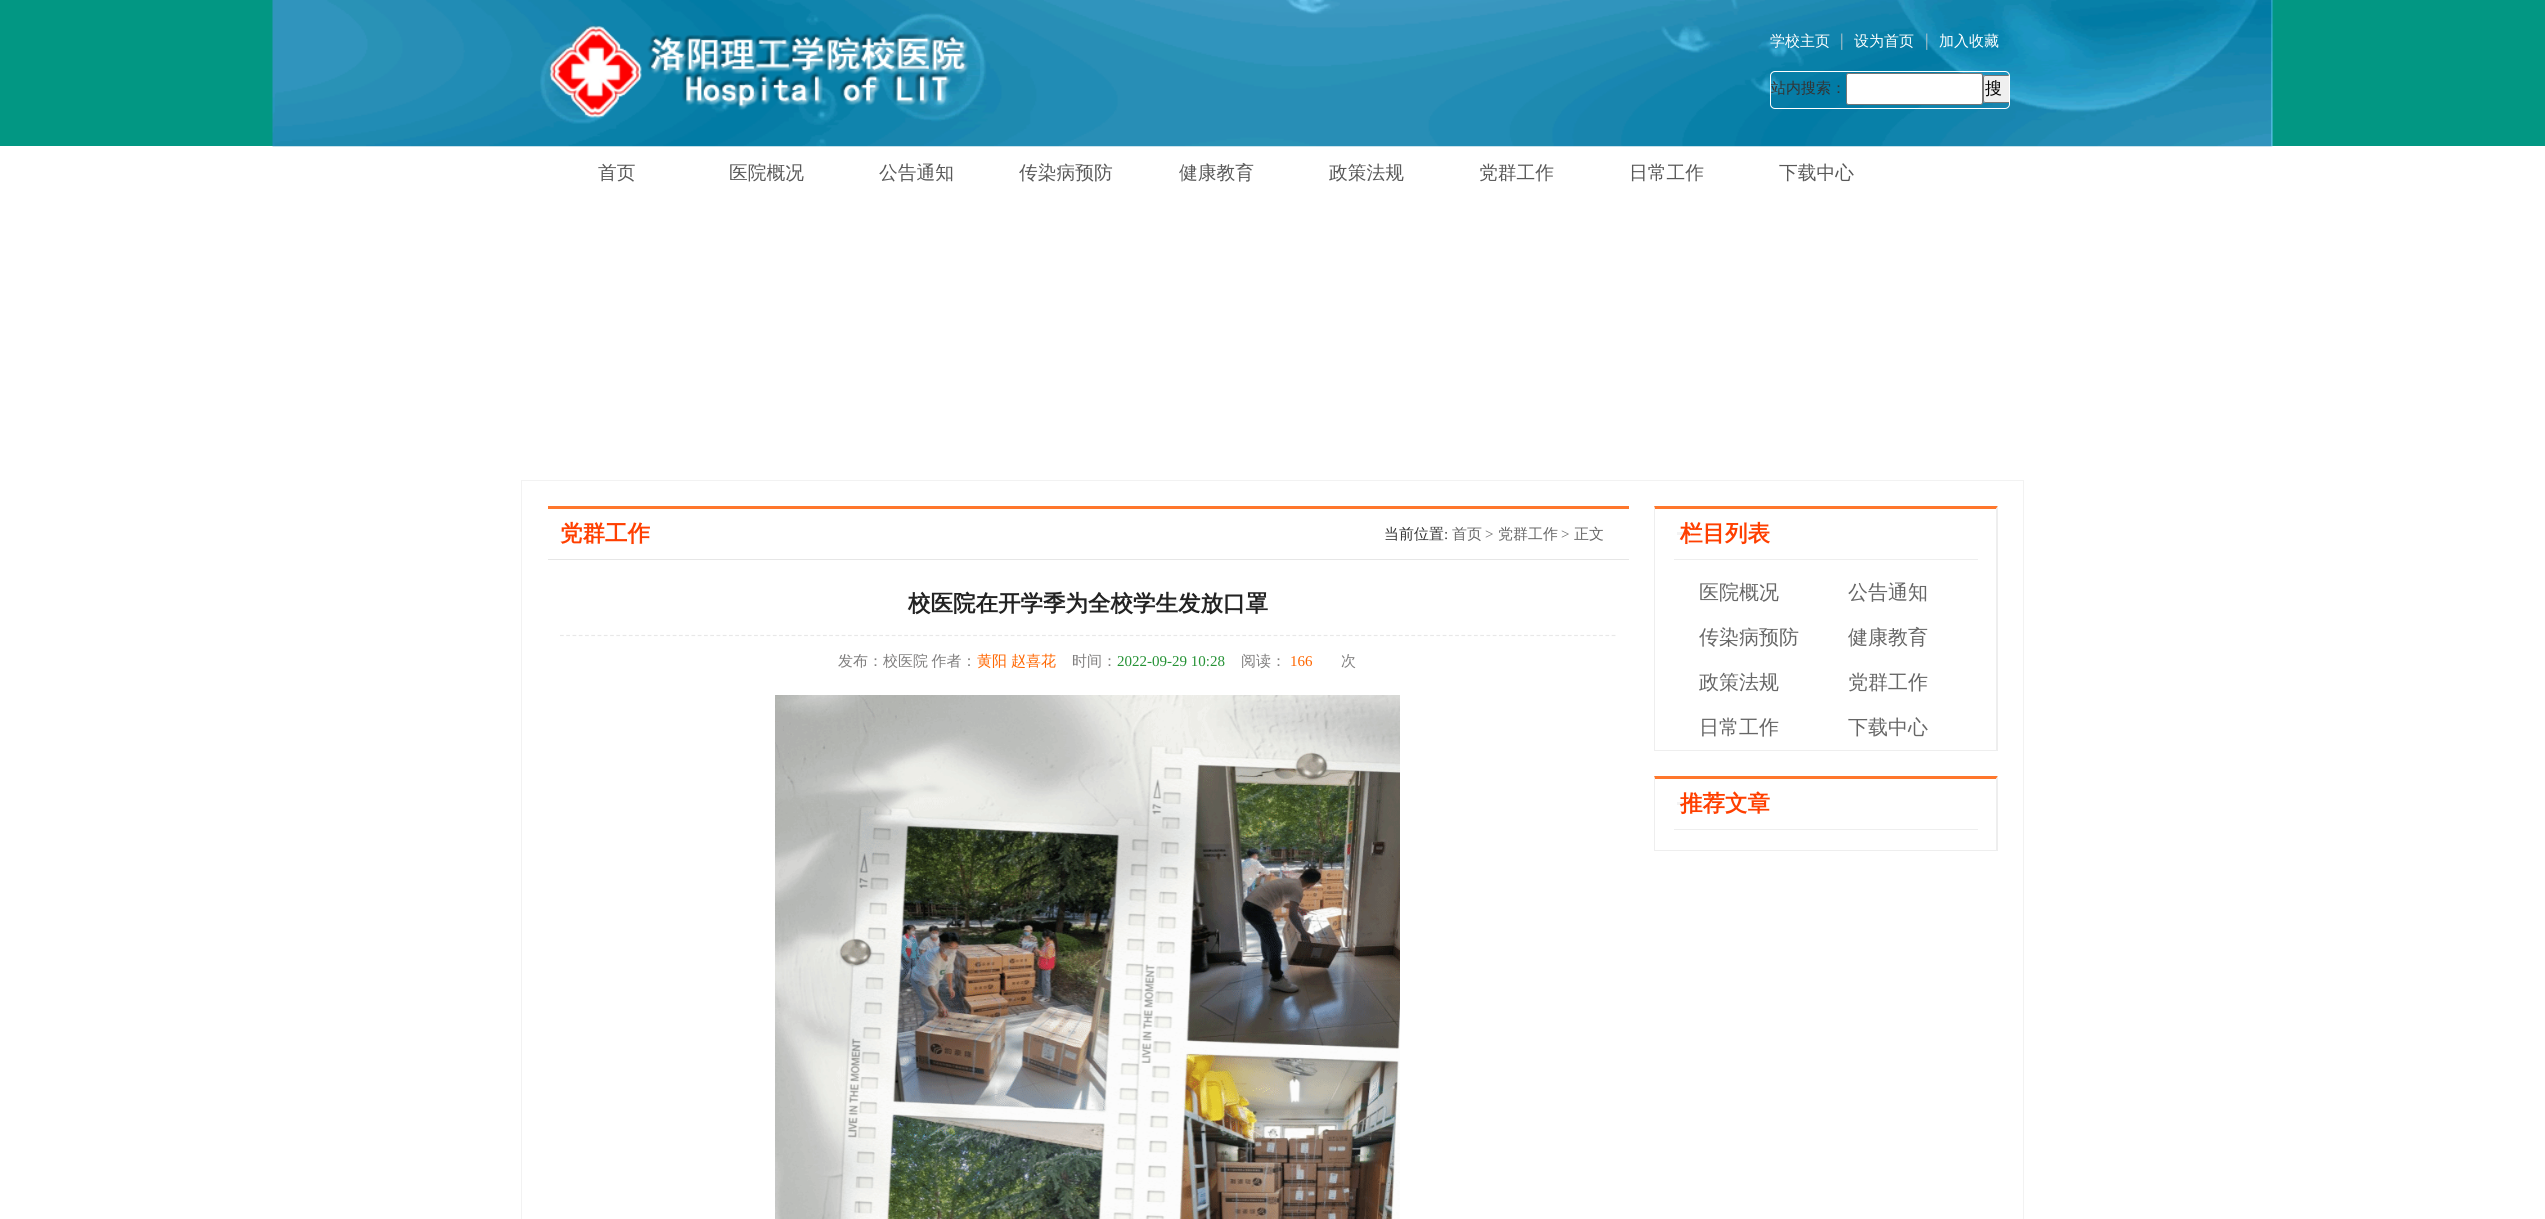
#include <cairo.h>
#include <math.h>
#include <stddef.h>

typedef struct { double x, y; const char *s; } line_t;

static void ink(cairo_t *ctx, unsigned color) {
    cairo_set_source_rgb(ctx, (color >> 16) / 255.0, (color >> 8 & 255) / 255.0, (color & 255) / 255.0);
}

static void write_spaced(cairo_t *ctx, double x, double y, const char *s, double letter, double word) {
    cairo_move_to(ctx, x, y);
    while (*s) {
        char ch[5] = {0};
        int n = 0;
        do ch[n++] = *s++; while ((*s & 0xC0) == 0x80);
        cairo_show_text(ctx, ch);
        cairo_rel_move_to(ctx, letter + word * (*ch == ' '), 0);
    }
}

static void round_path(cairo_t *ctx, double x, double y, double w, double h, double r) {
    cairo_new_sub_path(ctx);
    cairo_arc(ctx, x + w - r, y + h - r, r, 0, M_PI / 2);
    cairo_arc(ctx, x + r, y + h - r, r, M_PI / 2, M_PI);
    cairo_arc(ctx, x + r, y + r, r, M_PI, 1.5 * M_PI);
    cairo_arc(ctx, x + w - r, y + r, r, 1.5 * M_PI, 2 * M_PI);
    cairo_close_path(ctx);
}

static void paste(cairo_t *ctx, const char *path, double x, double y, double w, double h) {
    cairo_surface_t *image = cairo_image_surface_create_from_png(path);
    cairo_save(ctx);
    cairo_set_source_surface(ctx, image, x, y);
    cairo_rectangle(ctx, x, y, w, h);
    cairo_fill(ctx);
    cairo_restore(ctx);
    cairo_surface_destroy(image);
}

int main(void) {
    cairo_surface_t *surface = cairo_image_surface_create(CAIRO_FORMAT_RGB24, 2545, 1219);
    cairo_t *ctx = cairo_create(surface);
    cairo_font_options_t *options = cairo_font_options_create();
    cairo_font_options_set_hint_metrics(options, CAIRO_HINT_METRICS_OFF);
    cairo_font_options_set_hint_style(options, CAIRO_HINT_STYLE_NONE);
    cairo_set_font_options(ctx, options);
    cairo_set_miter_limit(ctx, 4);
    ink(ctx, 0xFFFFFF);
    cairo_paint(ctx);
    ink(ctx, 0x029783);
    cairo_rectangle(ctx, 0, 0, 2545, 146);
    cairo_fill(ctx);
    paste(ctx, "media/1.png", 272, 0, 2001, 147);
    paste(ctx, "media/2.png", 548, 25, 421, 93);
    cairo_select_font_face(ctx, "WenQuanYi Zen Hei Medium", CAIRO_FONT_SLANT_NORMAL, CAIRO_FONT_WEIGHT_NORMAL);
    cairo_set_font_size(ctx, 15);
    ink(ctx, 0xFFFFFF);
    cairo_move_to(ctx, 1770, 46);
    cairo_show_text(ctx, "学校主页");
    cairo_select_font_face(ctx, "Liberation Serif", CAIRO_FONT_SLANT_NORMAL, CAIRO_FONT_WEIGHT_NORMAL);
    cairo_set_font_size(ctx, 18);
    ink(ctx, 0xCCCCCC);
    cairo_move_to(ctx, 1840, 46);
    cairo_show_text(ctx, "|");
    cairo_select_font_face(ctx, "WenQuanYi Zen Hei Medium", CAIRO_FONT_SLANT_NORMAL, CAIRO_FONT_WEIGHT_NORMAL);
    cairo_set_font_size(ctx, 15);
    ink(ctx, 0xFFFFFF);
    cairo_move_to(ctx, 1854, 46);
    cairo_show_text(ctx, "设为首页");
    cairo_select_font_face(ctx, "Liberation Serif", CAIRO_FONT_SLANT_NORMAL, CAIRO_FONT_WEIGHT_NORMAL);
    cairo_set_font_size(ctx, 18);
    ink(ctx, 0xCCCCCC);
    cairo_move_to(ctx, 1925, 46);
    cairo_show_text(ctx, "|");
    cairo_select_font_face(ctx, "WenQuanYi Zen Hei Medium", CAIRO_FONT_SLANT_NORMAL, CAIRO_FONT_WEIGHT_NORMAL);
    cairo_set_font_size(ctx, 15);
    ink(ctx, 0xFFFFFF);
    cairo_move_to(ctx, 1939, 46);
    cairo_show_text(ctx, "加入收藏");
    round_path(ctx, 1770.5, 71.5, 239, 37, 4.5);
    cairo_set_line_width(ctx, 1);
    cairo_stroke(ctx);
    ink(ctx, 0x333333);
    cairo_move_to(ctx, 1771, 93);
    cairo_show_text(ctx, "站内搜索：");
    ink(ctx, 0xFFFFFF);
    round_path(ctx, 1846.5, 73.5, 136, 31, 2);
    cairo_fill_preserve(ctx);
    ink(ctx, 0x767676);
    cairo_stroke(ctx);
    ink(ctx, 0xEFEFEF);
    cairo_new_path(ctx);
    cairo_move_to(ctx, 1985.5, 75);
    cairo_line_to(ctx, 2009, 75);
    cairo_line_to(ctx, 2009, 103);
    cairo_line_to(ctx, 1985.5, 103);
    cairo_curve_to(ctx, 1984, 103, 1983, 102, 1983, 100.5);
    cairo_line_to(ctx, 1983, 77.5);
    cairo_curve_to(ctx, 1983, 76, 1984, 75, 1985.5, 75);
    cairo_close_path(ctx);
    cairo_fill(ctx);
    ink(ctx, 0x767676);
    cairo_new_path(ctx);
    cairo_move_to(ctx, 1985.5, 75);
    cairo_curve_to(ctx, 1984, 75, 1983, 76, 1983, 77.5);
    cairo_line_to(ctx, 1983, 100.5);
    cairo_curve_to(ctx, 1983, 102, 1984, 103, 1985.5, 103);
    cairo_line_to(ctx, 2009, 103);
    cairo_line_to(ctx, 2009, 102);
    cairo_line_to(ctx, 1985.5, 102);
    cairo_curve_to(ctx, 1984.5, 102, 1984, 101.5, 1984, 100.5);
    cairo_line_to(ctx, 1984, 77.5);
    cairo_curve_to(ctx, 1984, 76.5, 1984.5, 76, 1985.5, 76);
    cairo_line_to(ctx, 2009, 76);
    cairo_line_to(ctx, 2008.5, 75);
    cairo_close_path(ctx);
    cairo_fill(ctx);
    cairo_set_font_size(ctx, 17);
    ink(ctx, 0x000000);
    cairo_move_to(ctx, 1985, 94);
    cairo_show_text(ctx, "搜");
    cairo_set_font_size(ctx, 18.75);
    ink(ctx, 0x585858);
    {
        static const line_t items[] = {
            {598, 179, "首页"},
            {729, 179, "医院概况"},
            {879, 179, "公告通知"},
            {1019, 179, "传染病预防"},
            {1179, 179, "健康教育"},
            {1329, 179, "政策法规"},
            {1479, 179, "党群工作"},
            {1629, 179, "日常工作"},
            {1779, 179, "下载中心"},
        };
        for (size_t i = 0; i < sizeof items / sizeof *items; i++) {
            cairo_move_to(ctx, items[i].x, items[i].y);
            cairo_show_text(ctx, items[i].s);
        }
    }
    cairo_rectangle(ctx, 521.5, 480.5, 1502, 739);
    ink(ctx, 0xF2F2F2);
    cairo_stroke(ctx);
    ink(ctx, 0xFF772C);
    cairo_rectangle(ctx, 548, 506, 1081, 3);
    cairo_fill(ctx);
    ink(ctx, 0xE6E6E6);
    cairo_rectangle(ctx, 548, 559, 1081, 1);
    cairo_fill(ctx);
    cairo_select_font_face(ctx, "WenQuanYi Zen Hei", CAIRO_FONT_SLANT_NORMAL, CAIRO_FONT_WEIGHT_BOLD);
    cairo_set_font_size(ctx, 22.5);
    ink(ctx, 0xFF3F00);
    cairo_move_to(ctx, 560, 541);
    cairo_show_text(ctx, "党群工作");
    cairo_select_font_face(ctx, "WenQuanYi Zen Hei Medium", CAIRO_FONT_SLANT_NORMAL, CAIRO_FONT_WEIGHT_NORMAL);
    cairo_set_font_size(ctx, 15);
    ink(ctx, 0x333333);
    cairo_move_to(ctx, 1384, 539);
    cairo_show_text(ctx, "当前位置");
    cairo_select_font_face(ctx, "Liberation Serif", CAIRO_FONT_SLANT_NORMAL, CAIRO_FONT_WEIGHT_NORMAL);
    cairo_move_to(ctx, 1444, 539);
    cairo_show_text(ctx, ":");
    cairo_select_font_face(ctx, "WenQuanYi Zen Hei Medium", CAIRO_FONT_SLANT_NORMAL, CAIRO_FONT_WEIGHT_NORMAL);
    ink(ctx, 0x666666);
    cairo_move_to(ctx, 1452, 539);
    cairo_show_text(ctx, "首页");
    cairo_select_font_face(ctx, "Liberation Serif", CAIRO_FONT_SLANT_NORMAL, CAIRO_FONT_WEIGHT_NORMAL);
    cairo_move_to(ctx, 1485, 539);
    cairo_show_text(ctx, ">");
    cairo_select_font_face(ctx, "WenQuanYi Zen Hei Medium", CAIRO_FONT_SLANT_NORMAL, CAIRO_FONT_WEIGHT_NORMAL);
    cairo_move_to(ctx, 1498, 539);
    cairo_show_text(ctx, "党群工作");
    cairo_select_font_face(ctx, "Liberation Serif", CAIRO_FONT_SLANT_NORMAL, CAIRO_FONT_WEIGHT_NORMAL);
    cairo_move_to(ctx, 1561, 539);
    cairo_show_text(ctx, ">");
    cairo_select_font_face(ctx, "WenQuanYi Zen Hei Medium", CAIRO_FONT_SLANT_NORMAL, CAIRO_FONT_WEIGHT_NORMAL);
    cairo_move_to(ctx, 1574, 539);
    cairo_show_text(ctx, "正文");
    cairo_select_font_face(ctx, "WenQuanYi Zen Hei", CAIRO_FONT_SLANT_NORMAL, CAIRO_FONT_WEIGHT_BOLD);
    cairo_set_font_size(ctx, 22.5);
    ink(ctx, 0x222222);
    cairo_move_to(ctx, 908, 611);
    cairo_show_text(ctx, "校医院在开学季为全校学生发放口罩");
    cairo_new_path(ctx);
    cairo_move_to(ctx, 560, 635.5);
    cairo_line_to(ctx, 1616, 635.5);
    ink(ctx, 0xE8E8E8);
    cairo_set_line_width(ctx, 1.2);
    cairo_set_dash(ctx, (double[]){3.75, 2.51}, 2, 0);
    cairo_stroke(ctx);
    cairo_select_font_face(ctx, "WenQuanYi Zen Hei Medium", CAIRO_FONT_SLANT_NORMAL, CAIRO_FONT_WEIGHT_NORMAL);
    cairo_set_font_size(ctx, 15);
    ink(ctx, 0x7F7E7E);
    write_spaced(ctx, 838, 666, "发布：校医院 作者：", 0, -1);
    ink(ctx, 0xFF6600);
    cairo_move_to(ctx, 977, 666);
    cairo_show_text(ctx, "黄阳");
    cairo_move_to(ctx, 1011, 666);
    cairo_show_text(ctx, "赵喜花");
    ink(ctx, 0x7F7E7E);
    cairo_move_to(ctx, 1072, 666);
    cairo_show_text(ctx, "时间：");
    cairo_select_font_face(ctx, "Liberation Serif", CAIRO_FONT_SLANT_NORMAL, CAIRO_FONT_WEIGHT_NORMAL);
    ink(ctx, 0x259235);
    cairo_move_to(ctx, 1117, 666);
    cairo_show_text(ctx, "2022-09-29 10:28");
    cairo_select_font_face(ctx, "WenQuanYi Zen Hei Medium", CAIRO_FONT_SLANT_NORMAL, CAIRO_FONT_WEIGHT_NORMAL);
    ink(ctx, 0x7F7E7E);
    cairo_move_to(ctx, 1241, 666);
    cairo_show_text(ctx, "阅读：");
    cairo_select_font_face(ctx, "Liberation Serif", CAIRO_FONT_SLANT_NORMAL, CAIRO_FONT_WEIGHT_NORMAL);
    ink(ctx, 0xFF6600);
    cairo_move_to(ctx, 1290, 666);
    cairo_show_text(ctx, "166");
    cairo_select_font_face(ctx, "WenQuanYi Zen Hei Medium", CAIRO_FONT_SLANT_NORMAL, CAIRO_FONT_WEIGHT_NORMAL);
    ink(ctx, 0x7F7E7E);
    cairo_move_to(ctx, 1341, 666);
    cairo_show_text(ctx, "次");
    paste(ctx, "media/3.png", 775, 695, 625, 524);
    ink(ctx, 0xFF772C);
    cairo_new_path(ctx);
    cairo_move_to(ctx, 1654, 506);
    cairo_line_to(ctx, 1998, 506);
    cairo_line_to(ctx, 1996, 509);
    cairo_line_to(ctx, 1655, 509);
    cairo_close_path(ctx);
    cairo_fill(ctx);
    ink(ctx, 0xEEEEEE);
    cairo_new_path(ctx);
    cairo_move_to(ctx, 1998, 506);
    cairo_line_to(ctx, 1998, 751);
    cairo_line_to(ctx, 1996, 750);
    cairo_line_to(ctx, 1996, 509);
    cairo_close_path(ctx);
    cairo_fill(ctx);
    cairo_rectangle(ctx, 1654, 750, 344, 1);
    cairo_fill(ctx);
    cairo_new_path(ctx);
    cairo_move_to(ctx, 1654, 751);
    cairo_line_to(ctx, 1654, 506);
    cairo_line_to(ctx, 1655, 509);
    cairo_line_to(ctx, 1655, 750);
    cairo_close_path(ctx);
    cairo_fill(ctx);
    ink(ctx, 0xF3F3F3);
    cairo_rectangle(ctx, 1677, 532, 11, 3);
    cairo_fill(ctx);
    ink(ctx, 0xEEEEEE);
    cairo_rectangle(ctx, 1674, 559, 304, 1);
    cairo_fill(ctx);
    cairo_select_font_face(ctx, "WenQuanYi Zen Hei", CAIRO_FONT_SLANT_NORMAL, CAIRO_FONT_WEIGHT_BOLD);
    cairo_set_font_size(ctx, 22.5);
    ink(ctx, 0xFF3F00);
    cairo_move_to(ctx, 1680, 541);
    cairo_show_text(ctx, "栏目列表");
    cairo_select_font_face(ctx, "WenQuanYi Zen Hei Medium", CAIRO_FONT_SLANT_NORMAL, CAIRO_FONT_WEIGHT_NORMAL);
    cairo_set_font_size(ctx, 20);
    ink(ctx, 0x666666);
    {
        static const line_t items[] = {
            {1699, 599, "医院概况"},
            {1848, 599, "公告通知"},
            {1699, 644, "传染病预防"},
            {1848, 644, "健康教育"},
            {1699, 689, "政策法规"},
            {1848, 689, "党群工作"},
            {1699, 734, "日常工作"},
            {1848, 734, "下载中心"},
        };
        for (size_t i = 0; i < sizeof items / sizeof *items; i++) {
            cairo_move_to(ctx, items[i].x, items[i].y);
            cairo_show_text(ctx, items[i].s);
        }
    }
    ink(ctx, 0xFF772C);
    cairo_new_path(ctx);
    cairo_move_to(ctx, 1654, 776);
    cairo_line_to(ctx, 1998, 776);
    cairo_line_to(ctx, 1996, 779);
    cairo_line_to(ctx, 1655, 779);
    cairo_close_path(ctx);
    cairo_fill(ctx);
    ink(ctx, 0xEEEEEE);
    cairo_new_path(ctx);
    cairo_move_to(ctx, 1998, 776);
    cairo_line_to(ctx, 1998, 851);
    cairo_line_to(ctx, 1996, 850);
    cairo_line_to(ctx, 1996, 779);
    cairo_close_path(ctx);
    cairo_fill(ctx);
    cairo_rectangle(ctx, 1654, 850, 344, 1);
    cairo_fill(ctx);
    cairo_new_path(ctx);
    cairo_move_to(ctx, 1654, 851);
    cairo_line_to(ctx, 1654, 776);
    cairo_line_to(ctx, 1655, 779);
    cairo_line_to(ctx, 1655, 850);
    cairo_close_path(ctx);
    cairo_fill(ctx);
    ink(ctx, 0xF3F3F3);
    cairo_rectangle(ctx, 1677, 802, 11, 3);
    cairo_fill(ctx);
    ink(ctx, 0xEEEEEE);
    cairo_rectangle(ctx, 1674, 829, 304, 1);
    cairo_fill(ctx);
    cairo_select_font_face(ctx, "WenQuanYi Zen Hei", CAIRO_FONT_SLANT_NORMAL, CAIRO_FONT_WEIGHT_BOLD);
    cairo_set_font_size(ctx, 22.5);
    ink(ctx, 0xFF3F00);
    cairo_move_to(ctx, 1680, 811);
    cairo_show_text(ctx, "推荐文章");
    cairo_surface_write_to_png(surface, "image.png");
    cairo_font_options_destroy(options);
    cairo_destroy(ctx);
    cairo_surface_destroy(surface);
    return 0;
}
